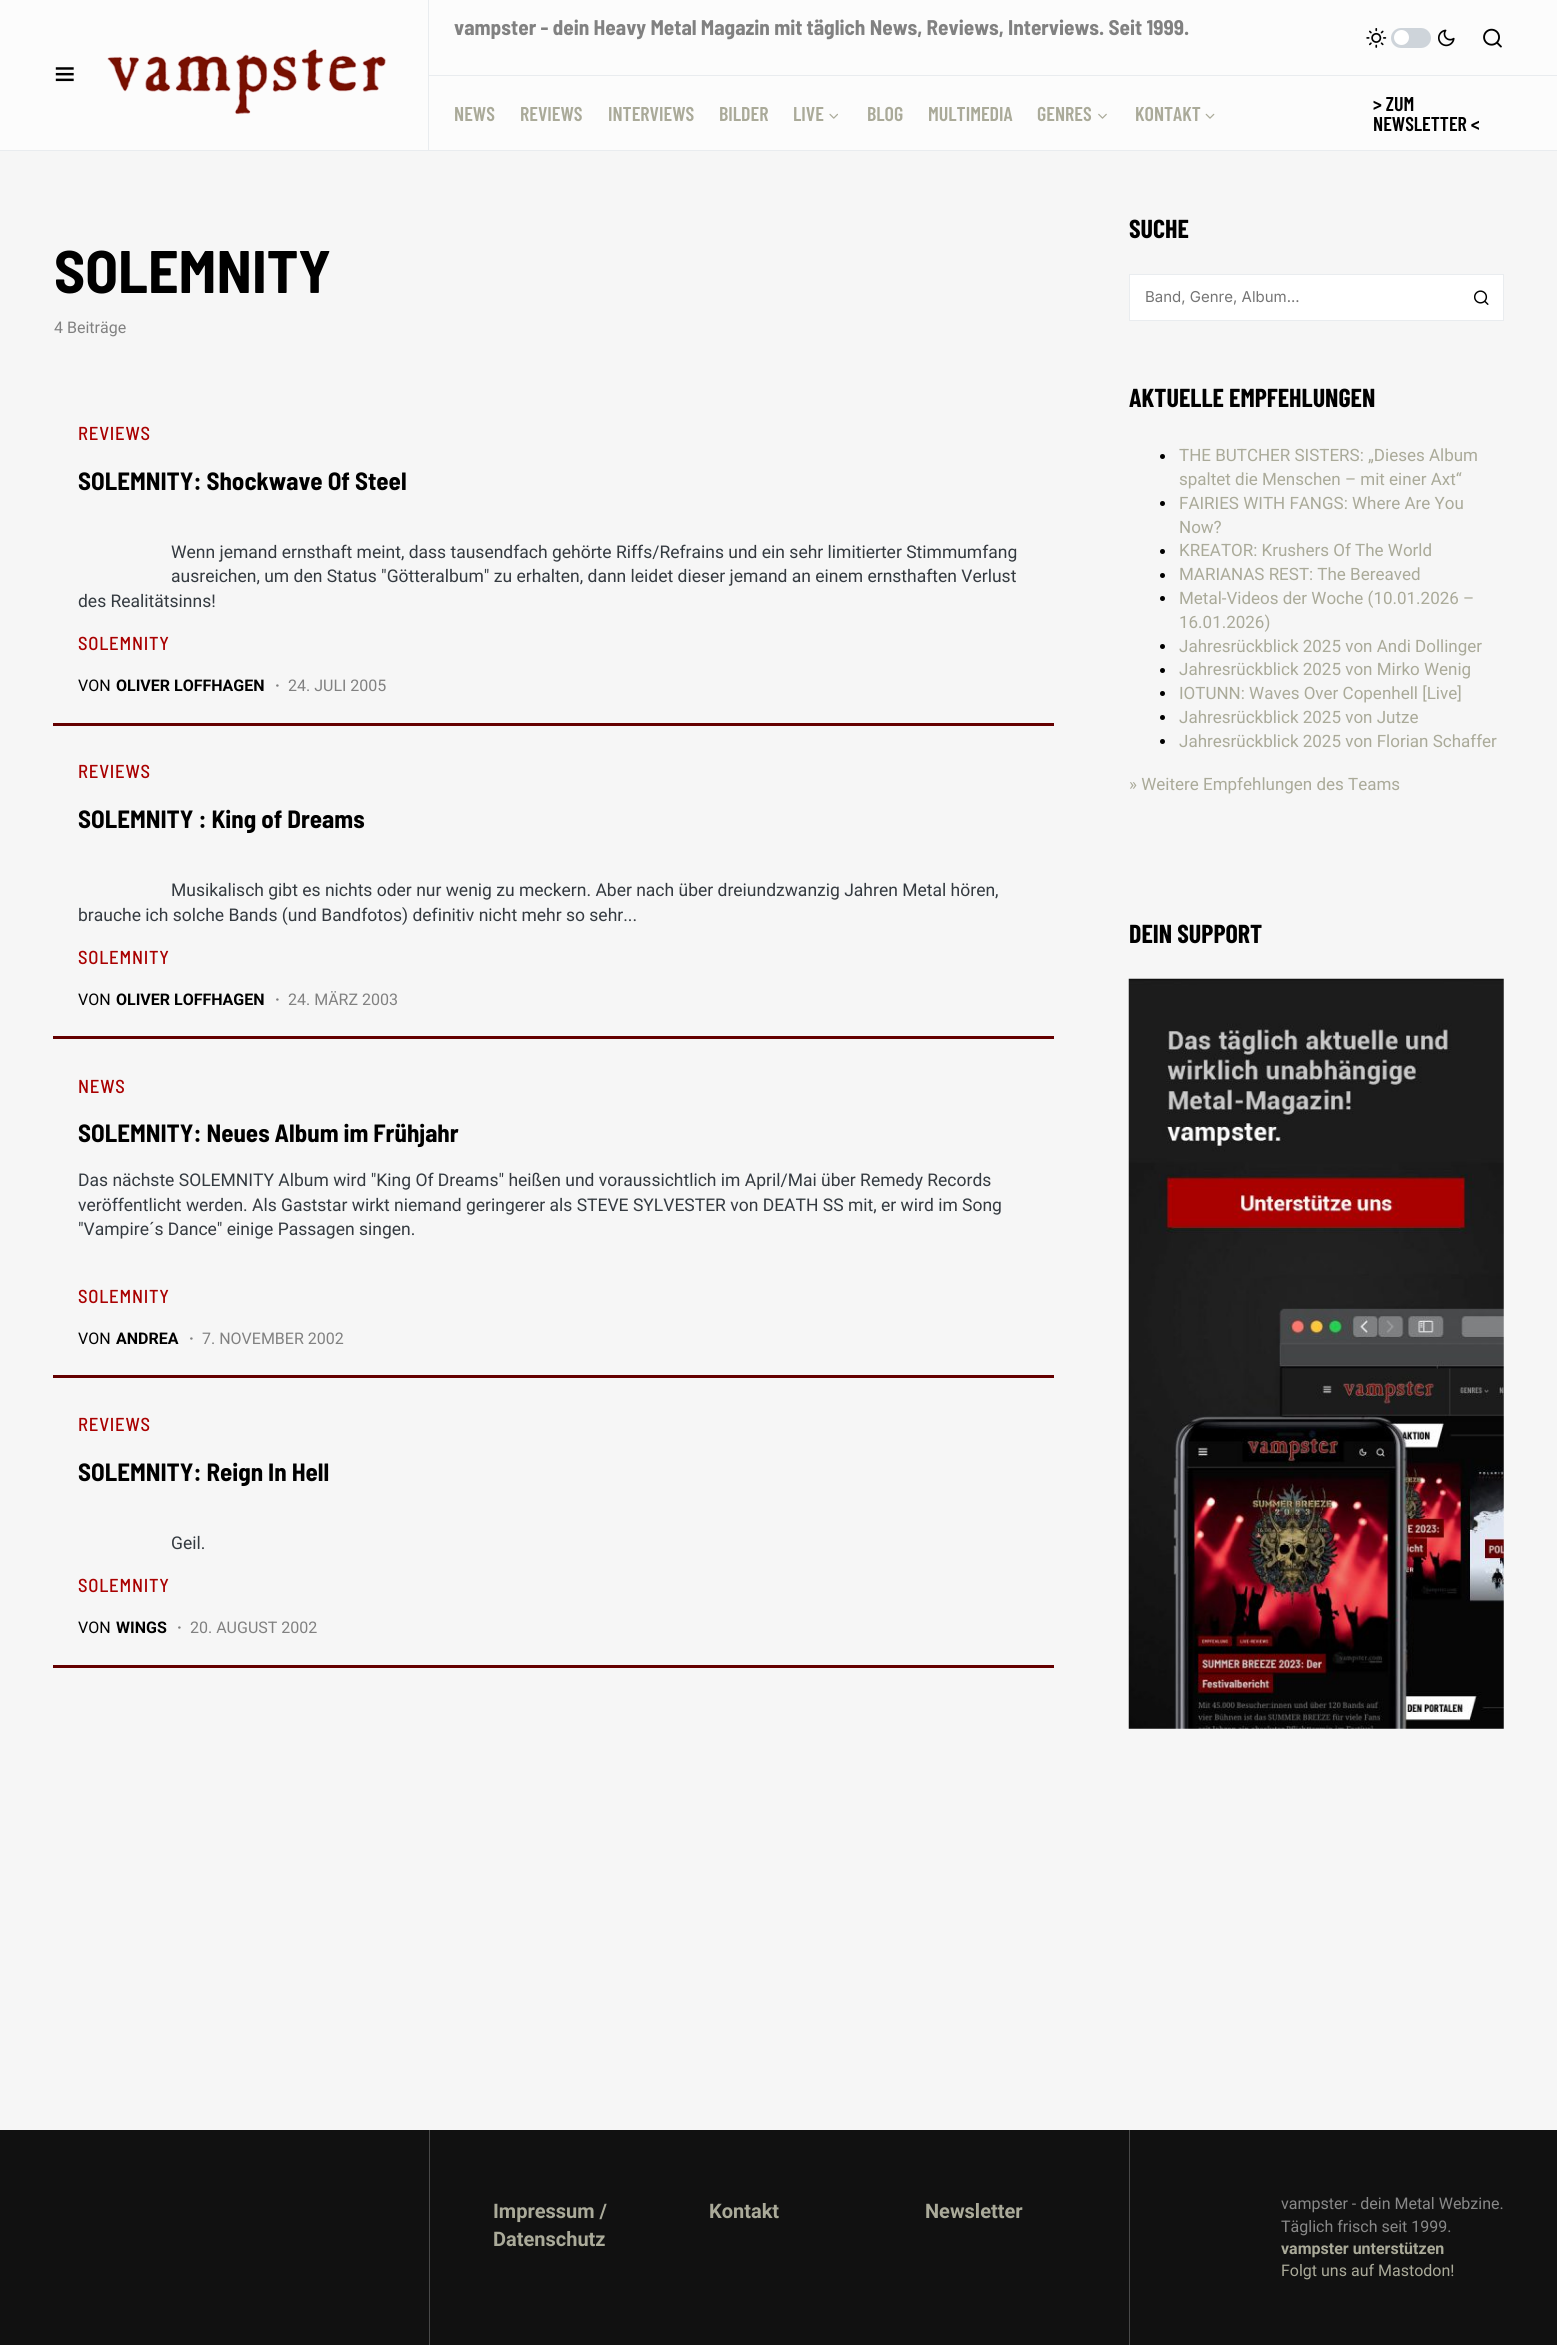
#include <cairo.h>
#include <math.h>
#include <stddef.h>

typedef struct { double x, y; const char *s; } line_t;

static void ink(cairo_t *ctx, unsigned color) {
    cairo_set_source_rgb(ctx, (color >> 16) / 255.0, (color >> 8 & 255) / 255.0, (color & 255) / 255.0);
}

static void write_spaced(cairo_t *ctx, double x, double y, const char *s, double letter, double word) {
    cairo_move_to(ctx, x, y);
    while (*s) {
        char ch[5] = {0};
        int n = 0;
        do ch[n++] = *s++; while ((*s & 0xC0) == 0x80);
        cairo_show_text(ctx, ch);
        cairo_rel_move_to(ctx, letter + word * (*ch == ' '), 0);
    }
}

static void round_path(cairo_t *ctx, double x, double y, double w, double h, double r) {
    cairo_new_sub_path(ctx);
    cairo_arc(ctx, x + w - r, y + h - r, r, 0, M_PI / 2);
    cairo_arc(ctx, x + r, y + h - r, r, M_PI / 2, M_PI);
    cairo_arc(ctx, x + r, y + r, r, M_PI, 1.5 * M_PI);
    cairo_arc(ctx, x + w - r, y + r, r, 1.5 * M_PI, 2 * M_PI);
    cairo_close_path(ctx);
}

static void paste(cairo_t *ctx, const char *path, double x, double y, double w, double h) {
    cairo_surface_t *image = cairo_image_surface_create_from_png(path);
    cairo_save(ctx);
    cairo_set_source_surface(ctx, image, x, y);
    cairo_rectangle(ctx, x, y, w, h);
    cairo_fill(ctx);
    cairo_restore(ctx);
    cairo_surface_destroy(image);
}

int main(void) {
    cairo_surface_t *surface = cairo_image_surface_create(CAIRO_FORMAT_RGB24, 1557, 2345);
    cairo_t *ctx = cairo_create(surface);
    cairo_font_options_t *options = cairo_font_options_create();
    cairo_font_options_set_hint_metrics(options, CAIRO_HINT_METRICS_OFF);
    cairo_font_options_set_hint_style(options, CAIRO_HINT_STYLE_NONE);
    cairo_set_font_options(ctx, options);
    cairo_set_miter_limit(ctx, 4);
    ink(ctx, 0xF6F6F6);
    cairo_paint(ctx);
    ink(ctx, 0xFCFCFC);
    cairo_rectangle(ctx, 0, 0, 1557, 150);
    cairo_fill(ctx);
    ink(ctx, 0xE9ECEF);
    cairo_rectangle(ctx, 0, 150, 1557, 1);
    cairo_fill(ctx);
    paste(ctx, "media/1.png", 55, 67, 19, 15);
    cairo_rectangle(ctx, 428, 0, 1, 150);
    cairo_fill(ctx);
    paste(ctx, "media/2.png", 107, 49, 279, 66);
    cairo_rectangle(ctx, 429, 75, 1128, 1);
    cairo_fill(ctx);
    cairo_select_font_face(ctx, "Barlow Semi Condensed", CAIRO_FONT_SLANT_NORMAL, CAIRO_FONT_WEIGHT_BOLD);
    cairo_set_font_size(ctx, 21.25);
    ink(ctx, 0x818181);
    cairo_move_to(ctx, 454, 35);
    cairo_show_text(ctx, "vampster - dein Heavy Metal Magazin mit täglich News, Reviews, Interviews. Seit 1999.");
    paste(ctx, "media/3.png", 1366, 28, 21, 20);
    ink(ctx, 0xCED4DA);
    round_path(ctx, 1391, 28, 40, 20, 10);
    cairo_fill(ctx);
    ink(ctx, 0xFFFFFF);
    cairo_arc(ctx, 1401.5, 37.5, 7.5, 0, 2 * M_PI);
    cairo_fill(ctx);
    paste(ctx, "media/4.png", 1438, 29, 17, 18);
    paste(ctx, "media/5.png", 1483, 28, 19, 20);
    cairo_select_font_face(ctx, "Barlow Condensed SemiBold", CAIRO_FONT_SLANT_NORMAL, CAIRO_FONT_WEIGHT_NORMAL);
    cairo_set_font_size(ctx, 20);
    ink(ctx, 0xAAAA99);
    {
        static const line_t items[] = {
            {454, 121, "NEWS"},
            {520, 121, "REVIEWS"},
            {608, 121, "INTERVIEWS"},
            {719, 121, "BILDER"},
            {793, 121, "LIVE"},
        };
        for (size_t i = 0; i < sizeof items / sizeof *items; i++) {
            cairo_move_to(ctx, items[i].x, items[i].y);
            cairo_show_text(ctx, items[i].s);
        }
    }
    paste(ctx, "media/6.png", 829, 113, 9, 6);
    {
        static const line_t items[] = {
            {867, 121, "BLOG"},
            {928, 121, "MULTIMEDIA"},
            {1037, 121, "GENRES"},
        };
        for (size_t i = 0; i < sizeof items / sizeof *items; i++) {
            cairo_move_to(ctx, items[i].x, items[i].y);
            cairo_show_text(ctx, items[i].s);
        }
    }
    paste(ctx, "media/7.png", 1098, 113, 9, 6);
    cairo_move_to(ctx, 1135, 121);
    cairo_show_text(ctx, "KONTAKT");
    paste(ctx, "media/8.png", 1205, 113, 10, 6);
    ink(ctx, 0x000000);
    cairo_move_to(ctx, 1373, 111);
    cairo_show_text(ctx, "> ZUM");
    cairo_move_to(ctx, 1373, 131);
    cairo_show_text(ctx, "NEWSLETTER <");
    cairo_select_font_face(ctx, "Barlow Semi Condensed", CAIRO_FONT_SLANT_NORMAL, CAIRO_FONT_WEIGHT_BOLD);
    cairo_set_font_size(ctx, 60);
    cairo_move_to(ctx, 54, 293);
    cairo_show_text(ctx, "SOLEMNITY");
    cairo_select_font_face(ctx, "Roboto", CAIRO_FONT_SLANT_NORMAL, CAIRO_FONT_WEIGHT_NORMAL);
    cairo_set_font_size(ctx, 16);
    ink(ctx, 0x818181);
    cairo_move_to(ctx, 54, 333);
    cairo_show_text(ctx, "4 Beiträge");
    ink(ctx, 0x640000);
    cairo_rectangle(ctx, 53, 723, 1001, 3);
    cairo_fill(ctx);
    cairo_select_font_face(ctx, "Barlow Semi Condensed Medium", CAIRO_FONT_SLANT_NORMAL, CAIRO_FONT_WEIGHT_NORMAL);
    cairo_set_font_size(ctx, 18.75);
    ink(ctx, 0xA90000);
    write_spaced(ctx, 78, 440, "REVIEWS", 0.75, 0);
    cairo_select_font_face(ctx, "Barlow Semi Condensed", CAIRO_FONT_SLANT_NORMAL, CAIRO_FONT_WEIGHT_BOLD);
    cairo_set_font_size(ctx, 25);
    ink(ctx, 0x000000);
    cairo_move_to(ctx, 78, 490);
    cairo_show_text(ctx, "SOLEMNITY: Shockwave Of Steel");
    cairo_select_font_face(ctx, "Roboto", CAIRO_FONT_SLANT_NORMAL, CAIRO_FONT_WEIGHT_NORMAL);
    cairo_set_font_size(ctx, 17.5);
    ink(ctx, 0x343A40);
    {
        static const line_t items[] = {
            {171, 558, "Wenn jemand ernsthaft meint, dass tausendfach gehörte Riffs/Refrains und ein sehr limitierter Stimmumfang"},
            {171, 582, "ausreichen, um den Status \"Götteralbum\" zu erhalten, dann leidet dieser jemand an einem ernsthaften Verlust"},
            {78, 607, "des Realitätsinns!"},
        };
        for (size_t i = 0; i < sizeof items / sizeof *items; i++) {
            cairo_move_to(ctx, items[i].x, items[i].y);
            cairo_show_text(ctx, items[i].s);
        }
    }
    cairo_select_font_face(ctx, "Barlow Semi Condensed Medium", CAIRO_FONT_SLANT_NORMAL, CAIRO_FONT_WEIGHT_NORMAL);
    cairo_set_font_size(ctx, 18.75);
    ink(ctx, 0xA90000);
    write_spaced(ctx, 78, 650, "SOLEMNITY", 0.75, 0);
    cairo_select_font_face(ctx, "Roboto", CAIRO_FONT_SLANT_NORMAL, CAIRO_FONT_WEIGHT_NORMAL);
    cairo_set_font_size(ctx, 16);
    ink(ctx, 0x000000);
    cairo_move_to(ctx, 78, 691);
    cairo_show_text(ctx, "VON");
    cairo_select_font_face(ctx, "Roboto", CAIRO_FONT_SLANT_NORMAL, CAIRO_FONT_WEIGHT_BOLD);
    cairo_move_to(ctx, 116, 691);
    cairo_show_text(ctx, "OLIVER LOFFHAGEN");
    ink(ctx, 0x818181);
    cairo_move_to(ctx, 275, 691);
    cairo_show_text(ctx, "·");
    cairo_select_font_face(ctx, "Roboto", CAIRO_FONT_SLANT_NORMAL, CAIRO_FONT_WEIGHT_NORMAL);
    cairo_move_to(ctx, 288, 691);
    cairo_show_text(ctx, "24. JULI 2005");
    ink(ctx, 0x640000);
    cairo_rectangle(ctx, 53, 1036, 1001, 3);
    cairo_fill(ctx);
    cairo_select_font_face(ctx, "Barlow Semi Condensed Medium", CAIRO_FONT_SLANT_NORMAL, CAIRO_FONT_WEIGHT_NORMAL);
    cairo_set_font_size(ctx, 18.75);
    ink(ctx, 0xA90000);
    write_spaced(ctx, 78, 778, "REVIEWS", 0.75, 0);
    cairo_select_font_face(ctx, "Barlow Semi Condensed", CAIRO_FONT_SLANT_NORMAL, CAIRO_FONT_WEIGHT_BOLD);
    cairo_set_font_size(ctx, 25);
    ink(ctx, 0x000000);
    cairo_move_to(ctx, 78, 828);
    cairo_show_text(ctx, "SOLEMNITY : King of Dreams");
    cairo_select_font_face(ctx, "Roboto", CAIRO_FONT_SLANT_NORMAL, CAIRO_FONT_WEIGHT_NORMAL);
    cairo_set_font_size(ctx, 17.5);
    ink(ctx, 0x343A40);
    cairo_move_to(ctx, 171, 896);
    cairo_show_text(ctx, "Musikalisch gibt es nichts oder nur wenig zu meckern. Aber nach über dreiundzwanzig Jahren Metal hören,");
    cairo_move_to(ctx, 78, 921);
    cairo_show_text(ctx, "brauche ich solche Bands (und Bandfotos) definitiv nicht mehr so sehr...");
    cairo_select_font_face(ctx, "Barlow Semi Condensed Medium", CAIRO_FONT_SLANT_NORMAL, CAIRO_FONT_WEIGHT_NORMAL);
    cairo_set_font_size(ctx, 18.75);
    ink(ctx, 0xA90000);
    write_spaced(ctx, 78, 964, "SOLEMNITY", 0.75, 0);
    cairo_select_font_face(ctx, "Roboto", CAIRO_FONT_SLANT_NORMAL, CAIRO_FONT_WEIGHT_NORMAL);
    cairo_set_font_size(ctx, 16);
    ink(ctx, 0x000000);
    cairo_move_to(ctx, 78, 1005);
    cairo_show_text(ctx, "VON");
    cairo_select_font_face(ctx, "Roboto", CAIRO_FONT_SLANT_NORMAL, CAIRO_FONT_WEIGHT_BOLD);
    cairo_move_to(ctx, 116, 1005);
    cairo_show_text(ctx, "OLIVER LOFFHAGEN");
    ink(ctx, 0x818181);
    cairo_move_to(ctx, 275, 1005);
    cairo_show_text(ctx, "·");
    cairo_select_font_face(ctx, "Roboto", CAIRO_FONT_SLANT_NORMAL, CAIRO_FONT_WEIGHT_NORMAL);
    cairo_move_to(ctx, 288, 1005);
    cairo_show_text(ctx, "24. MÄRZ 2003");
    ink(ctx, 0x640000);
    cairo_rectangle(ctx, 53, 1375, 1001, 3);
    cairo_fill(ctx);
    cairo_select_font_face(ctx, "Barlow Semi Condensed Medium", CAIRO_FONT_SLANT_NORMAL, CAIRO_FONT_WEIGHT_NORMAL);
    cairo_set_font_size(ctx, 18.75);
    ink(ctx, 0xA90000);
    write_spaced(ctx, 78, 1093, "NEWS", 0.75, 0);
    cairo_select_font_face(ctx, "Barlow Semi Condensed", CAIRO_FONT_SLANT_NORMAL, CAIRO_FONT_WEIGHT_BOLD);
    cairo_set_font_size(ctx, 25);
    ink(ctx, 0x000000);
    cairo_move_to(ctx, 78, 1142);
    cairo_show_text(ctx, "SOLEMNITY: Neues Album im Frühjahr");
    cairo_select_font_face(ctx, "Roboto", CAIRO_FONT_SLANT_NORMAL, CAIRO_FONT_WEIGHT_NORMAL);
    cairo_set_font_size(ctx, 17.5);
    ink(ctx, 0x343A40);
    {
        static const line_t items[] = {
            {78, 1186, "Das nächste SOLEMNITY Album wird \"King Of Dreams\" heißen und voraussichtlich im April/Mai über Remedy Records"},
            {78, 1211, "veröffentlicht werden. Als Gaststar wirkt niemand geringerer als STEVE SYLVESTER von DEATH SS mit, er wird im Song"},
            {78, 1235, "\"Vampire´s Dance\" einige Passagen singen."},
        };
        for (size_t i = 0; i < sizeof items / sizeof *items; i++) {
            cairo_move_to(ctx, items[i].x, items[i].y);
            cairo_show_text(ctx, items[i].s);
        }
    }
    cairo_select_font_face(ctx, "Barlow Semi Condensed Medium", CAIRO_FONT_SLANT_NORMAL, CAIRO_FONT_WEIGHT_NORMAL);
    cairo_set_font_size(ctx, 18.75);
    ink(ctx, 0xA90000);
    write_spaced(ctx, 78, 1303, "SOLEMNITY", 0.75, 0);
    cairo_select_font_face(ctx, "Roboto", CAIRO_FONT_SLANT_NORMAL, CAIRO_FONT_WEIGHT_NORMAL);
    cairo_set_font_size(ctx, 16);
    ink(ctx, 0x000000);
    cairo_move_to(ctx, 78, 1344);
    cairo_show_text(ctx, "VON");
    cairo_select_font_face(ctx, "Roboto", CAIRO_FONT_SLANT_NORMAL, CAIRO_FONT_WEIGHT_BOLD);
    cairo_move_to(ctx, 116, 1344);
    cairo_show_text(ctx, "ANDREA");
    ink(ctx, 0x818181);
    cairo_move_to(ctx, 189, 1344);
    cairo_show_text(ctx, "·");
    cairo_select_font_face(ctx, "Roboto", CAIRO_FONT_SLANT_NORMAL, CAIRO_FONT_WEIGHT_NORMAL);
    cairo_move_to(ctx, 202, 1344);
    cairo_show_text(ctx, "7. NOVEMBER 2002");
    ink(ctx, 0x640000);
    cairo_rectangle(ctx, 53, 1665, 1001, 3);
    cairo_fill(ctx);
    cairo_select_font_face(ctx, "Barlow Semi Condensed Medium", CAIRO_FONT_SLANT_NORMAL, CAIRO_FONT_WEIGHT_NORMAL);
    cairo_set_font_size(ctx, 18.75);
    ink(ctx, 0xA90000);
    write_spaced(ctx, 78, 1431, "REVIEWS", 0.75, 0);
    cairo_select_font_face(ctx, "Barlow Semi Condensed", CAIRO_FONT_SLANT_NORMAL, CAIRO_FONT_WEIGHT_BOLD);
    cairo_set_font_size(ctx, 25);
    ink(ctx, 0x000000);
    cairo_move_to(ctx, 78, 1481);
    cairo_show_text(ctx, "SOLEMNITY: Reign In Hell");
    cairo_select_font_face(ctx, "Roboto", CAIRO_FONT_SLANT_NORMAL, CAIRO_FONT_WEIGHT_NORMAL);
    cairo_set_font_size(ctx, 17.5);
    ink(ctx, 0x343A40);
    cairo_move_to(ctx, 171, 1549);
    cairo_show_text(ctx, "Geil.");
    cairo_select_font_face(ctx, "Barlow Semi Condensed Medium", CAIRO_FONT_SLANT_NORMAL, CAIRO_FONT_WEIGHT_NORMAL);
    cairo_set_font_size(ctx, 18.75);
    ink(ctx, 0xA90000);
    write_spaced(ctx, 78, 1592, "SOLEMNITY", 0.75, 0);
    cairo_select_font_face(ctx, "Roboto", CAIRO_FONT_SLANT_NORMAL, CAIRO_FONT_WEIGHT_NORMAL);
    cairo_set_font_size(ctx, 16);
    ink(ctx, 0x000000);
    cairo_move_to(ctx, 78, 1633);
    cairo_show_text(ctx, "VON");
    cairo_select_font_face(ctx, "Roboto", CAIRO_FONT_SLANT_NORMAL, CAIRO_FONT_WEIGHT_BOLD);
    cairo_move_to(ctx, 116, 1633);
    cairo_show_text(ctx, "WINGS");
    ink(ctx, 0x818181);
    cairo_move_to(ctx, 177, 1633);
    cairo_show_text(ctx, "·");
    cairo_select_font_face(ctx, "Roboto", CAIRO_FONT_SLANT_NORMAL, CAIRO_FONT_WEIGHT_NORMAL);
    cairo_move_to(ctx, 190, 1633);
    cairo_show_text(ctx, "20. AUGUST 2002");
    cairo_select_font_face(ctx, "Barlow Condensed", CAIRO_FONT_SLANT_NORMAL, CAIRO_FONT_WEIGHT_BOLD);
    cairo_set_font_size(ctx, 26);
    ink(ctx, 0x000000);
    cairo_move_to(ctx, 1129, 238);
    cairo_show_text(ctx, "SUCHE");
    ink(ctx, 0xFFFFFF);
    cairo_rectangle(ctx, 1129.5, 274.5, 374, 46);
    cairo_fill_preserve(ctx);
    ink(ctx, 0xE9ECEF);
    cairo_set_line_width(ctx, 1);
    cairo_stroke(ctx);
    cairo_select_font_face(ctx, "Inter", CAIRO_FONT_SLANT_NORMAL, CAIRO_FONT_WEIGHT_NORMAL);
    cairo_set_font_size(ctx, 15);
    ink(ctx, 0x757575);
    cairo_move_to(ctx, 1145, 302);
    cairo_show_text(ctx, "Band, Genre, Album...");
    paste(ctx, "media/9.png", 1474, 290, 15, 15);
    cairo_select_font_face(ctx, "Barlow Condensed", CAIRO_FONT_SLANT_NORMAL, CAIRO_FONT_WEIGHT_BOLD);
    cairo_set_font_size(ctx, 26);
    ink(ctx, 0x000000);
    cairo_move_to(ctx, 1129, 407);
    cairo_show_text(ctx, "AKTUELLE EMPFEHLUNGEN");
    cairo_new_path(ctx);
    cairo_arc(ctx, 1162.5, 456.5, 2.5, 0, 2 * M_PI);
    cairo_fill(ctx);
    cairo_select_font_face(ctx, "Roboto", CAIRO_FONT_SLANT_NORMAL, CAIRO_FONT_WEIGHT_NORMAL);
    cairo_set_font_size(ctx, 17);
    ink(ctx, 0xAAAA99);
    cairo_move_to(ctx, 1179, 461);
    cairo_show_text(ctx, "THE BUTCHER SISTERS: „Dieses Album");
    cairo_move_to(ctx, 1179, 485);
    cairo_show_text(ctx, "spaltet die Menschen – mit einer Axt“");
    ink(ctx, 0x000000);
    cairo_new_path(ctx);
    cairo_arc(ctx, 1162.5, 503.5, 2.5, 0, 2 * M_PI);
    cairo_fill(ctx);
    ink(ctx, 0xAAAA99);
    cairo_move_to(ctx, 1179, 509);
    cairo_show_text(ctx, "FAIRIES WITH FANGS: Where Are You");
    cairo_move_to(ctx, 1179, 533);
    cairo_show_text(ctx, "Now?");
    ink(ctx, 0x000000);
    cairo_new_path(ctx);
    cairo_arc(ctx, 1162.5, 551.5, 2.5, 0, 2 * M_PI);
    cairo_fill(ctx);
    ink(ctx, 0xAAAA99);
    cairo_move_to(ctx, 1179, 556);
    cairo_show_text(ctx, "KREATOR: Krushers Of The World");
    ink(ctx, 0x000000);
    cairo_new_path(ctx);
    cairo_arc(ctx, 1162.5, 575.5, 2.5, 0, 2 * M_PI);
    cairo_fill(ctx);
    ink(ctx, 0xAAAA99);
    cairo_move_to(ctx, 1179, 580);
    cairo_show_text(ctx, "MARIANAS REST: The Bereaved");
    ink(ctx, 0x000000);
    cairo_new_path(ctx);
    cairo_arc(ctx, 1162.5, 598.5, 2.5, 0, 2 * M_PI);
    cairo_fill(ctx);
    ink(ctx, 0xAAAA99);
    cairo_move_to(ctx, 1179, 604);
    cairo_show_text(ctx, "Metal-Videos der Woche (10.01.2026 –");
    cairo_move_to(ctx, 1179, 628);
    cairo_show_text(ctx, "16.01.2026)");
    ink(ctx, 0x000000);
    cairo_new_path(ctx);
    cairo_arc(ctx, 1162.5, 646.5, 2.5, 0, 2 * M_PI);
    cairo_fill(ctx);
    ink(ctx, 0xAAAA99);
    cairo_move_to(ctx, 1179, 652);
    cairo_show_text(ctx, "Jahresrückblick 2025 von Andi Dollinger");
    ink(ctx, 0x000000);
    cairo_new_path(ctx);
    cairo_arc(ctx, 1162.5, 670.5, 2.5, 0, 2 * M_PI);
    cairo_fill(ctx);
    ink(ctx, 0xAAAA99);
    cairo_move_to(ctx, 1179, 675);
    cairo_show_text(ctx, "Jahresrückblick 2025 von Mirko Wenig");
    ink(ctx, 0x000000);
    cairo_new_path(ctx);
    cairo_arc(ctx, 1162.5, 693.5, 2.5, 0, 2 * M_PI);
    cairo_fill(ctx);
    ink(ctx, 0xAAAA99);
    cairo_move_to(ctx, 1179, 699);
    cairo_show_text(ctx, "IOTUNN: Waves Over Copenhell [Live]");
    ink(ctx, 0x000000);
    cairo_new_path(ctx);
    cairo_arc(ctx, 1162.5, 717.5, 2.5, 0, 2 * M_PI);
    cairo_fill(ctx);
    ink(ctx, 0xAAAA99);
    cairo_move_to(ctx, 1179, 723);
    cairo_show_text(ctx, "Jahresrückblick 2025 von Jutze");
    ink(ctx, 0x000000);
    cairo_new_path(ctx);
    cairo_arc(ctx, 1162.5, 741.5, 2.5, 0, 2 * M_PI);
    cairo_fill(ctx);
    ink(ctx, 0xAAAA99);
    cairo_move_to(ctx, 1179, 747);
    cairo_show_text(ctx, "Jahresrückblick 2025 von Florian Schaffer");
    cairo_move_to(ctx, 1129, 790);
    cairo_show_text(ctx, "» Weitere Empfehlungen des Teams");
    cairo_select_font_face(ctx, "Barlow Condensed", CAIRO_FONT_SLANT_NORMAL, CAIRO_FONT_WEIGHT_BOLD);
    cairo_set_font_size(ctx, 26);
    ink(ctx, 0x000000);
    cairo_move_to(ctx, 1129, 943);
    cairo_show_text(ctx, "DEIN SUPPORT");
    paste(ctx, "media/10.png", 1128, 978, 376, 751);
    ink(ctx, 0x111111);
    cairo_rectangle(ctx, 0, 2130, 1557, 215);
    cairo_fill(ctx);
    ink(ctx, 0x494949);
    cairo_rectangle(ctx, 429, 2130, 1, 215);
    cairo_fill(ctx);
    cairo_select_font_face(ctx, "Roboto", CAIRO_FONT_SLANT_NORMAL, CAIRO_FONT_WEIGHT_BOLD);
    cairo_set_font_size(ctx, 20);
    ink(ctx, 0xAAAA99);
    {
        static const line_t items[] = {
            {493, 2218, "Impressum /"},
            {493, 2246, "Datenschutz"},
            {709, 2218, "Kontakt"},
            {925, 2218, "Newsletter"},
        };
        for (size_t i = 0; i < sizeof items / sizeof *items; i++) {
            cairo_move_to(ctx, items[i].x, items[i].y);
            cairo_show_text(ctx, items[i].s);
        }
    }
    ink(ctx, 0x494949);
    cairo_rectangle(ctx, 1129, 2130, 1, 215);
    cairo_fill(ctx);
    cairo_select_font_face(ctx, "Roboto", CAIRO_FONT_SLANT_NORMAL, CAIRO_FONT_WEIGHT_NORMAL);
    cairo_set_font_size(ctx, 16);
    ink(ctx, 0x888888);
    cairo_move_to(ctx, 1281, 2209);
    cairo_show_text(ctx, "vampster - dein Metal Webzine.");
    cairo_move_to(ctx, 1281, 2232);
    cairo_show_text(ctx, "Täglich frisch seit 1999.");
    cairo_select_font_face(ctx, "Roboto", CAIRO_FONT_SLANT_NORMAL, CAIRO_FONT_WEIGHT_BOLD);
    ink(ctx, 0xAAAA99);
    cairo_move_to(ctx, 1281, 2254);
    cairo_show_text(ctx, "vampster unterstützen");
    cairo_select_font_face(ctx, "Roboto", CAIRO_FONT_SLANT_NORMAL, CAIRO_FONT_WEIGHT_NORMAL);
    cairo_move_to(ctx, 1281, 2276);
    cairo_show_text(ctx, "Folgt uns auf Mastodon!");
    cairo_surface_write_to_png(surface, "image.png");
    cairo_font_options_destroy(options);
    cairo_destroy(ctx);
    cairo_surface_destroy(surface);
    return 0;
}
